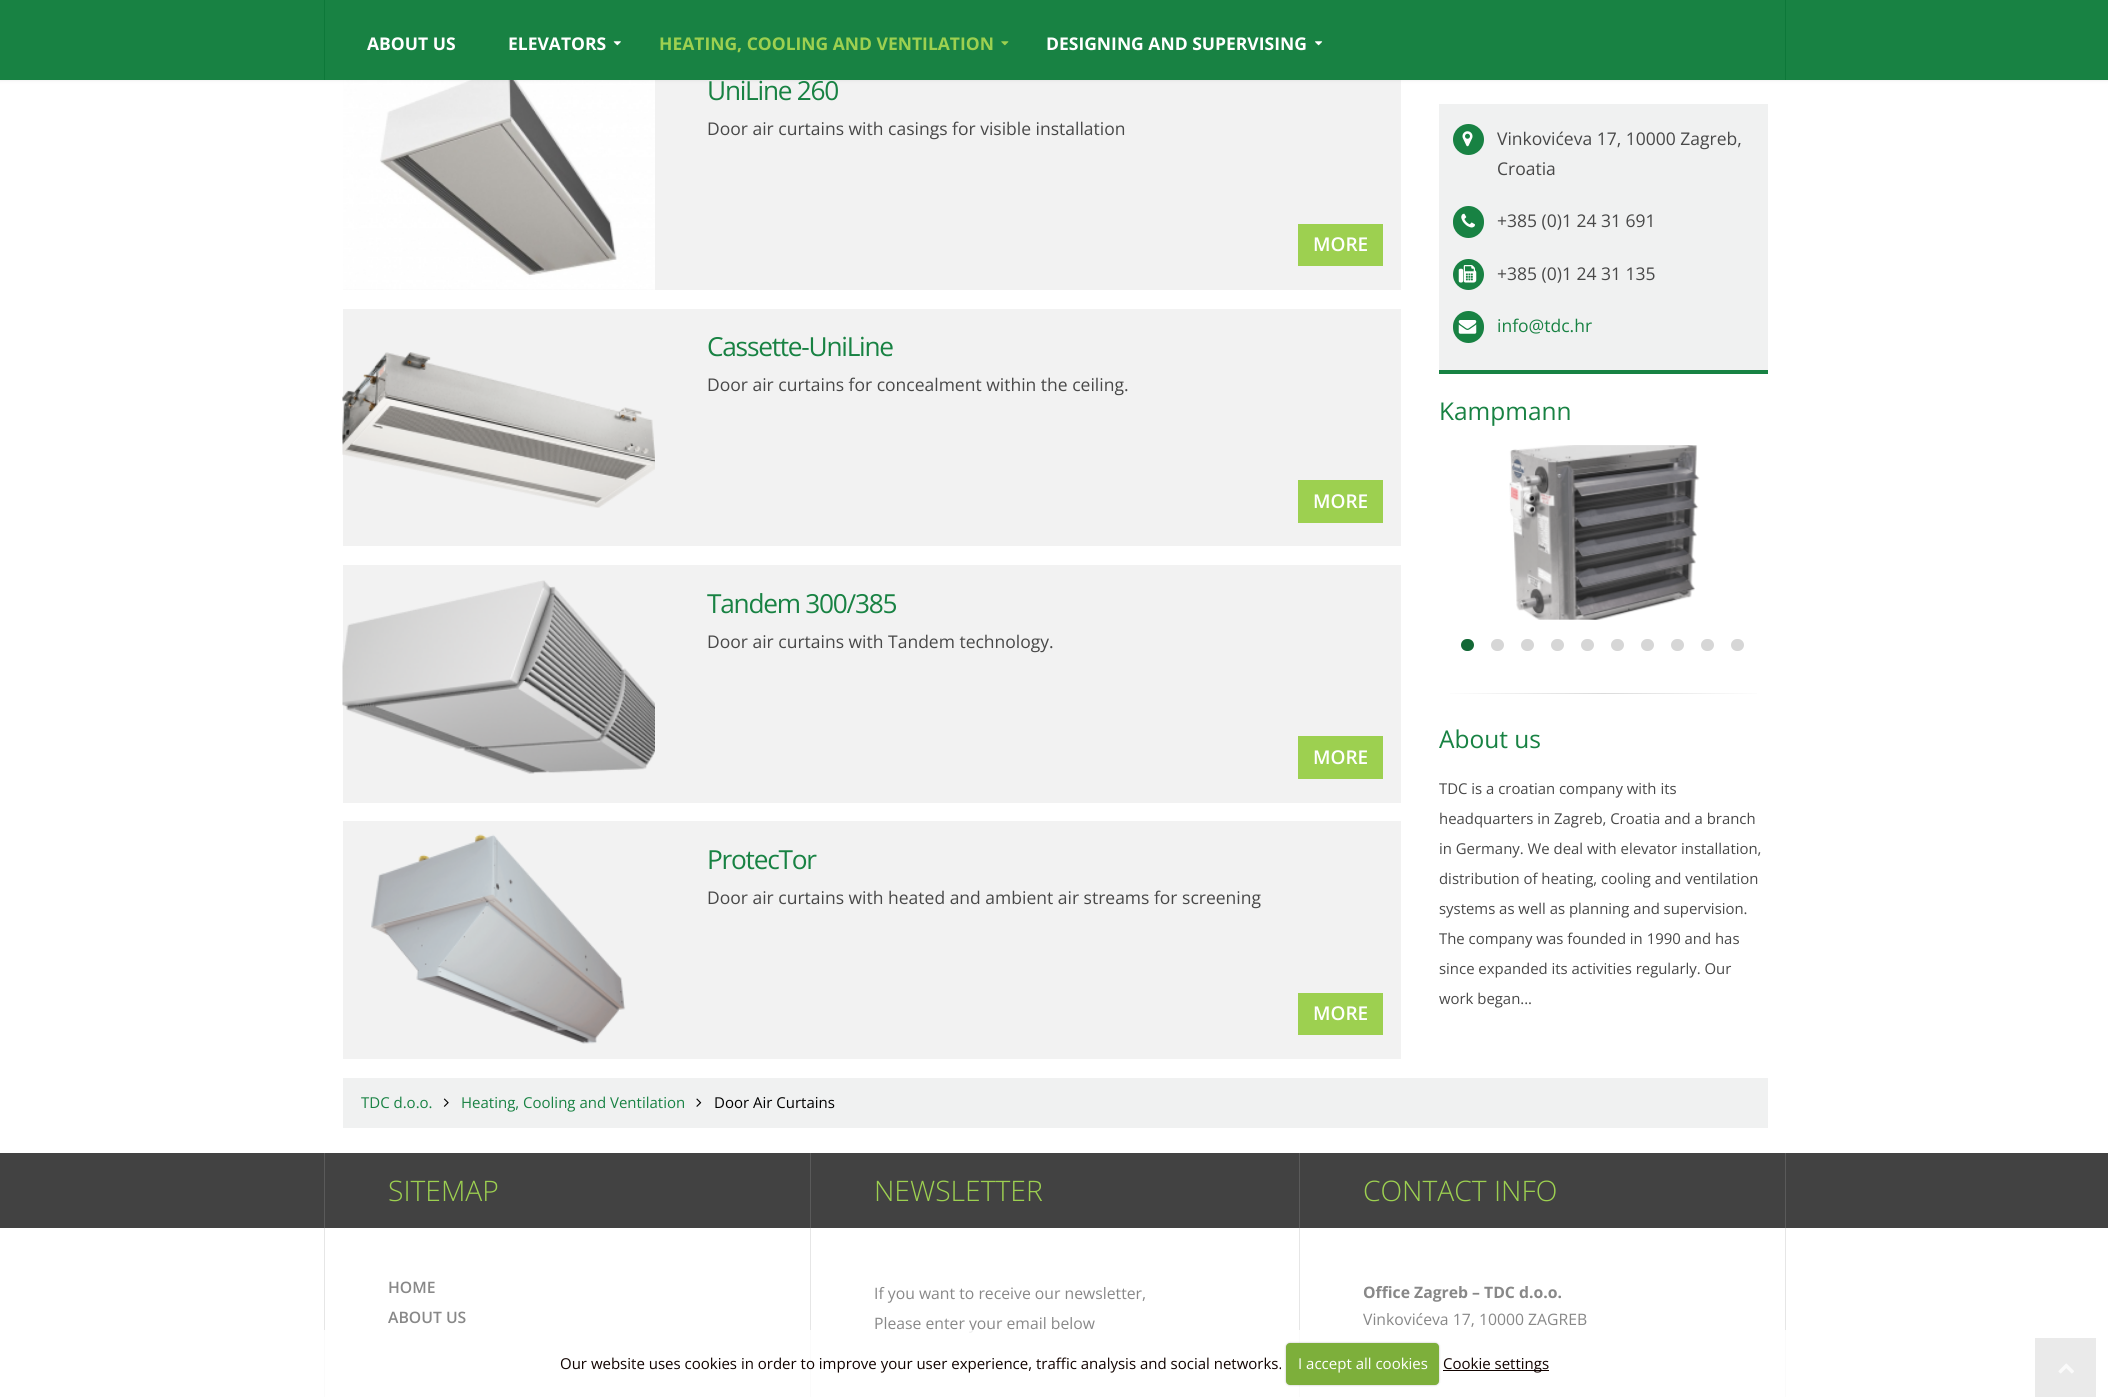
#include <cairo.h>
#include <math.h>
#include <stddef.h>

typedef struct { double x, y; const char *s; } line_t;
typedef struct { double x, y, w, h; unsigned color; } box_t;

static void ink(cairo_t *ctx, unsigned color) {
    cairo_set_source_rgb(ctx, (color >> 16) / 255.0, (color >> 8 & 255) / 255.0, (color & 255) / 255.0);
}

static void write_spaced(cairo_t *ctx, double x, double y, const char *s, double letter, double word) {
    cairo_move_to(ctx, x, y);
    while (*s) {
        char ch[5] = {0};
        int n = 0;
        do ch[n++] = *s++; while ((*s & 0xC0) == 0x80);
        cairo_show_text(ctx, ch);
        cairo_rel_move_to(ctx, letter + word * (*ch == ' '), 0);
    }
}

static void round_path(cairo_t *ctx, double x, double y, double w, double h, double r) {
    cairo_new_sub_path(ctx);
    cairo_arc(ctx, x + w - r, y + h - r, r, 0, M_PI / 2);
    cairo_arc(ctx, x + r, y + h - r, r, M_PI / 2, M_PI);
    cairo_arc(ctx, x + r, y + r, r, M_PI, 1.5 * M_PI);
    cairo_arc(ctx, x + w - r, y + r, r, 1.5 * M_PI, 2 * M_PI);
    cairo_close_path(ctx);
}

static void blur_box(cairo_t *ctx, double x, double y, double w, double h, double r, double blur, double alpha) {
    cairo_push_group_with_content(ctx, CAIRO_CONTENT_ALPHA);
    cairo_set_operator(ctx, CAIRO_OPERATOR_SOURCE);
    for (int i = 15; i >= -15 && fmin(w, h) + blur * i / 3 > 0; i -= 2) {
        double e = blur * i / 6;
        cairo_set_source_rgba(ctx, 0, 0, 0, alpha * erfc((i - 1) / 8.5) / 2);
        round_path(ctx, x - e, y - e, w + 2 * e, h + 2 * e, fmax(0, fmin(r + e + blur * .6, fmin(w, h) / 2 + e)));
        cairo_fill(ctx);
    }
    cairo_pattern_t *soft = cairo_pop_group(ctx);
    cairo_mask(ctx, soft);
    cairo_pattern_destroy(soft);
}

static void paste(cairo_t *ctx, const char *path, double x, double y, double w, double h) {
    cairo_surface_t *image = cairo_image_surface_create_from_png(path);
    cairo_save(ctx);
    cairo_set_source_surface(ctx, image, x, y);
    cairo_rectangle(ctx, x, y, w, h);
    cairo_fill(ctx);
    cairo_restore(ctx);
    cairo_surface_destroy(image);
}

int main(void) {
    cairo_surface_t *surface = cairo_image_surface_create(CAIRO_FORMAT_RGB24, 2108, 1397);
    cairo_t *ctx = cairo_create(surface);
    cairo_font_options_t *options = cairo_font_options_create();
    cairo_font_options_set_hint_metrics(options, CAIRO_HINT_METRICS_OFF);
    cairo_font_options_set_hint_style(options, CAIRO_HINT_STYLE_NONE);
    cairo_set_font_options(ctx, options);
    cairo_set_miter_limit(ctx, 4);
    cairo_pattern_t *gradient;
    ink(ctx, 0xFFFFFF);
    cairo_paint(ctx);
    ink(ctx, 0xF2F2F2);
    cairo_rectangle(ctx, 343, 80, 1058, 210);
    cairo_fill(ctx);
    paste(ctx, "media/4.png", 343, 80, 312, 210);
    ink(ctx, 0x000000);
    blur_box(ctx, 0, -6, 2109, 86, 0, 2, 0.1);
    {
        static const box_t items[] = {
            {0, 0, 2108, 80, 0x188243},
            {1785, 0, 1, 80, 0x0D7839},
            {324, 0, 1, 80, 0x0D7839},
        };
        for (size_t i = 0; i < sizeof items / sizeof *items; i++) {
            ink(ctx, items[i].color);
            cairo_rectangle(ctx, items[i].x, items[i].y, items[i].w, items[i].h);
            cairo_fill(ctx);
        }
    }
    cairo_select_font_face(ctx, "Open Sans", CAIRO_FONT_SLANT_NORMAL, CAIRO_FONT_WEIGHT_BOLD);
    cairo_set_font_size(ctx, 17.5);
    ink(ctx, 0xFFFFFF);
    cairo_move_to(ctx, 367, 50);
    cairo_show_text(ctx, "ABOUT US");
    cairo_move_to(ctx, 508, 50);
    cairo_show_text(ctx, "ELEVATORS");
    paste(ctx, "media/1.png", 613, 41, 8, 5);
    ink(ctx, 0x9DD050);
    cairo_move_to(ctx, 659, 50);
    cairo_show_text(ctx, "HEATING, COOLING AND VENTILATION");
    paste(ctx, "media/2.png", 1001, 41, 8, 5);
    ink(ctx, 0xFFFFFF);
    cairo_move_to(ctx, 1046, 50);
    cairo_show_text(ctx, "DESIGNING AND SUPERVISING");
    paste(ctx, "media/3.png", 1315, 41, 8, 5);
    cairo_select_font_face(ctx, "Open Sans", CAIRO_FONT_SLANT_NORMAL, CAIRO_FONT_WEIGHT_NORMAL);
    cairo_set_font_size(ctx, 26.25);
    ink(ctx, 0x188243);
    write_spaced(ctx, 707, 100, "UniLine 260", -1.25, 0);
    cairo_set_font_size(ctx, 17.5);
    ink(ctx, 0x484848);
    cairo_move_to(ctx, 707, 135);
    cairo_show_text(ctx, "Door air curtains with casings for visible installation");
    ink(ctx, 0x9DD050);
    cairo_rectangle(ctx, 1298, 224, 85, 42);
    cairo_fill(ctx);
    cairo_select_font_face(ctx, "Open Sans SemiBold", CAIRO_FONT_SLANT_NORMAL, CAIRO_FONT_WEIGHT_NORMAL);
    cairo_set_font_size(ctx, 19);
    ink(ctx, 0xFFFFFF);
    cairo_move_to(ctx, 1313, 251);
    cairo_show_text(ctx, "MORE");
    ink(ctx, 0xF2F2F2);
    cairo_rectangle(ctx, 343, 309, 1058, 237);
    cairo_fill(ctx);
    paste(ctx, "media/5.png", 342, 352, 313, 156);
    cairo_select_font_face(ctx, "Open Sans", CAIRO_FONT_SLANT_NORMAL, CAIRO_FONT_WEIGHT_NORMAL);
    cairo_set_font_size(ctx, 26.25);
    ink(ctx, 0x188243);
    write_spaced(ctx, 707, 356, "Cassette-UniLine", -1.25, 0);
    cairo_set_font_size(ctx, 17.5);
    ink(ctx, 0x484848);
    cairo_move_to(ctx, 707, 391);
    cairo_show_text(ctx, "Door air curtains for concealment within the ceiling.");
    ink(ctx, 0x9DD050);
    cairo_rectangle(ctx, 1298, 480, 85, 43);
    cairo_fill(ctx);
    cairo_select_font_face(ctx, "Open Sans SemiBold", CAIRO_FONT_SLANT_NORMAL, CAIRO_FONT_WEIGHT_NORMAL);
    cairo_set_font_size(ctx, 19);
    ink(ctx, 0xFFFFFF);
    cairo_move_to(ctx, 1313, 508);
    cairo_show_text(ctx, "MORE");
    ink(ctx, 0xF2F2F2);
    cairo_rectangle(ctx, 343, 565, 1058, 238);
    cairo_fill(ctx);
    paste(ctx, "media/6.png", 342, 580, 313, 194);
    cairo_select_font_face(ctx, "Open Sans", CAIRO_FONT_SLANT_NORMAL, CAIRO_FONT_WEIGHT_NORMAL);
    cairo_set_font_size(ctx, 26.25);
    ink(ctx, 0x188243);
    write_spaced(ctx, 707, 613, "Tandem 300/385", -1.25, 0);
    cairo_set_font_size(ctx, 17.5);
    ink(ctx, 0x484848);
    cairo_move_to(ctx, 707, 648);
    cairo_show_text(ctx, "Door air curtains with Tandem technology.");
    ink(ctx, 0x9DD050);
    cairo_rectangle(ctx, 1298, 736, 85, 43);
    cairo_fill(ctx);
    cairo_select_font_face(ctx, "Open Sans SemiBold", CAIRO_FONT_SLANT_NORMAL, CAIRO_FONT_WEIGHT_NORMAL);
    cairo_set_font_size(ctx, 19);
    ink(ctx, 0xFFFFFF);
    cairo_move_to(ctx, 1313, 764);
    cairo_show_text(ctx, "MORE");
    ink(ctx, 0xF2F2F2);
    cairo_rectangle(ctx, 343, 821, 1058, 238);
    cairo_fill(ctx);
    paste(ctx, "media/7.png", 371, 834, 255, 210);
    cairo_select_font_face(ctx, "Open Sans", CAIRO_FONT_SLANT_NORMAL, CAIRO_FONT_WEIGHT_NORMAL);
    cairo_set_font_size(ctx, 26.25);
    ink(ctx, 0x188243);
    write_spaced(ctx, 707, 869, "ProtecTor", -1.25, 0);
    cairo_set_font_size(ctx, 17.5);
    ink(ctx, 0x484848);
    cairo_move_to(ctx, 707, 904);
    cairo_show_text(ctx, "Door air curtains with heated and ambient air streams for screening");
    ink(ctx, 0x9DD050);
    cairo_rectangle(ctx, 1298, 993, 85, 42);
    cairo_fill(ctx);
    cairo_select_font_face(ctx, "Open Sans SemiBold", CAIRO_FONT_SLANT_NORMAL, CAIRO_FONT_WEIGHT_NORMAL);
    cairo_set_font_size(ctx, 19);
    ink(ctx, 0xFFFFFF);
    cairo_move_to(ctx, 1313, 1020);
    cairo_show_text(ctx, "MORE");
    ink(ctx, 0xF0F1F1);
    cairo_rectangle(ctx, 1439, 104, 329, 266);
    cairo_fill(ctx);
    ink(ctx, 0x188243);
    cairo_rectangle(ctx, 1439, 370, 329, 4);
    cairo_fill(ctx);
    cairo_arc(ctx, 1468.5, 139.5, 15.5, 0, 2 * M_PI);
    cairo_fill(ctx);
    paste(ctx, "media/8.png", 1462, 131, 11, 16);
    cairo_select_font_face(ctx, "Open Sans", CAIRO_FONT_SLANT_NORMAL, CAIRO_FONT_WEIGHT_NORMAL);
    cairo_set_font_size(ctx, 17.5);
    ink(ctx, 0x484848);
    cairo_move_to(ctx, 1497, 145);
    cairo_show_text(ctx, "Vinkovićeva 17, 10000 Zagreb,");
    cairo_move_to(ctx, 1497, 175);
    cairo_show_text(ctx, "Croatia");
    ink(ctx, 0x188243);
    round_path(ctx, 1453, 206, 31, 32, 15.5);
    cairo_fill(ctx);
    paste(ctx, "media/9.png", 1461, 213, 14, 15);
    ink(ctx, 0x484848);
    cairo_move_to(ctx, 1497, 227);
    cairo_show_text(ctx, "+385 (0)1 24 31 691");
    ink(ctx, 0x188243);
    cairo_new_path(ctx);
    cairo_arc(ctx, 1468.5, 274.5, 15.5, 0, 2 * M_PI);
    cairo_fill(ctx);
    paste(ctx, "media/10.png", 1458, 265, 19, 18);
    ink(ctx, 0x484848);
    cairo_move_to(ctx, 1497, 280);
    cairo_show_text(ctx, "+385 (0)1 24 31 135");
    ink(ctx, 0x188243);
    round_path(ctx, 1453, 311, 31, 32, 15.5);
    cairo_fill(ctx);
    paste(ctx, "media/11.png", 1458, 320, 19, 14);
    cairo_move_to(ctx, 1497, 332);
    cairo_show_text(ctx, "info@tdc.hr");
    cairo_set_font_size(ctx, 24.5);
    cairo_move_to(ctx, 1439, 420);
    cairo_show_text(ctx, "Kampmann");
    paste(ctx, "media/12.png", 1509, 445, 191, 175);
    ink(ctx, 0x136836);
    round_path(ctx, 1461, 639, 13, 12, 6);
    cairo_fill(ctx);
    ink(ctx, 0xD6D6D6);
    round_path(ctx, 1491, 639, 13, 12, 6);
    cairo_fill(ctx);
    round_path(ctx, 1521, 639, 13, 12, 6);
    cairo_fill(ctx);
    round_path(ctx, 1551, 639, 13, 12, 6);
    cairo_fill(ctx);
    round_path(ctx, 1581, 639, 13, 12, 6);
    cairo_fill(ctx);
    round_path(ctx, 1611, 639, 13, 12, 6);
    cairo_fill(ctx);
    round_path(ctx, 1641, 639, 13, 12, 6);
    cairo_fill(ctx);
    round_path(ctx, 1671, 639, 13, 12, 6);
    cairo_fill(ctx);
    round_path(ctx, 1701, 639, 13, 12, 6);
    cairo_fill(ctx);
    round_path(ctx, 1731, 639, 13, 12, 6);
    cairo_fill(ctx);
    gradient = cairo_pattern_create_linear(1439, 693, 1768, 693);
    cairo_pattern_add_color_stop_rgba(gradient, 0, 1, 1, 1, 1);
    cairo_pattern_add_color_stop_rgba(gradient, 0.5, 0.859, 0.859, 0.859, 1);
    cairo_pattern_add_color_stop_rgba(gradient, 1, 1, 1, 1, 1);
    cairo_set_source(ctx, gradient);
    cairo_pattern_destroy(gradient);
    cairo_rectangle(ctx, 1450, 693, 307, 1);
    cairo_fill(ctx);
    ink(ctx, 0x188243);
    cairo_move_to(ctx, 1439, 748);
    cairo_show_text(ctx, "About us");
    cairo_set_font_size(ctx, 14.9);
    ink(ctx, 0x484848);
    {
        static const line_t items[] = {
            {1439, 794, "TDC is a croatian company with its"},
            {1439, 824, "headquarters in Zagreb, Croatia and a branch"},
            {1439, 854, "in Germany. We deal with elevator installation,"},
            {1439, 884, "distribution of heating, cooling and ventilation"},
            {1439, 914, "systems as well as planning and supervision."},
            {1439, 944, "The company was founded in 1990 and has"},
            {1439, 974, "since expanded its activities regularly. Our"},
            {1439, 1004, "work began..."},
        };
        for (size_t i = 0; i < sizeof items / sizeof *items; i++) {
            cairo_move_to(ctx, items[i].x, items[i].y);
            cairo_show_text(ctx, items[i].s);
        }
    }
    ink(ctx, 0xF0F1F1);
    cairo_rectangle(ctx, 343, 1078, 1425, 50);
    cairo_fill(ctx);
    cairo_set_font_size(ctx, 15);
    ink(ctx, 0x188243);
    cairo_move_to(ctx, 361, 1108);
    cairo_show_text(ctx, "TDC d.o.o.");
    paste(ctx, "media/13.png", 443, 1098, 6, 9);
    cairo_move_to(ctx, 461, 1108);
    cairo_show_text(ctx, "Heating, Cooling and Ventilation");
    paste(ctx, "media/14.png", 696, 1098, 6, 9);
    ink(ctx, 0x000000);
    cairo_move_to(ctx, 714, 1108);
    cairo_show_text(ctx, "Door Air Curtains");
    {
        static const box_t items[] = {
            {0, 1153, 2108, 75, 0x424242},
            {810, 1153, 1, 75, 0x5A5A5A},
            {324, 1153, 1, 75, 0x5A5A5A},
        };
        for (size_t i = 0; i < sizeof items / sizeof *items; i++) {
            ink(ctx, items[i].color);
            cairo_rectangle(ctx, items[i].x, items[i].y, items[i].w, items[i].h);
            cairo_fill(ctx);
        }
    }
    cairo_select_font_face(ctx, "Open Sans Light", CAIRO_FONT_SLANT_NORMAL, CAIRO_FONT_WEIGHT_NORMAL);
    cairo_set_font_size(ctx, 28.25);
    ink(ctx, 0x9DD050);
    cairo_move_to(ctx, 388, 1201);
    cairo_show_text(ctx, "SITEMAP");
    cairo_move_to(ctx, 874, 1201);
    cairo_show_text(ctx, "NEWSLETTER");
    ink(ctx, 0x5A5A5A);
    cairo_rectangle(ctx, 1785, 1153, 1, 75);
    cairo_fill(ctx);
    cairo_rectangle(ctx, 1299, 1153, 1, 75);
    cairo_fill(ctx);
    ink(ctx, 0x9DD050);
    cairo_move_to(ctx, 1363, 1201);
    cairo_show_text(ctx, "CONTACT INFO");
    ink(ctx, 0xE6E6E6);
    cairo_rectangle(ctx, 810, 1228, 1, 169);
    cairo_fill(ctx);
    cairo_rectangle(ctx, 324, 1228, 1, 169);
    cairo_fill(ctx);
    cairo_select_font_face(ctx, "Open Sans SemiBold", CAIRO_FONT_SLANT_NORMAL, CAIRO_FONT_WEIGHT_NORMAL);
    cairo_set_font_size(ctx, 15.75);
    ink(ctx, 0x888888);
    cairo_move_to(ctx, 388, 1293);
    cairo_show_text(ctx, "HOME");
    cairo_move_to(ctx, 388, 1323);
    cairo_show_text(ctx, "ABOUT US");
    cairo_select_font_face(ctx, "Open Sans", CAIRO_FONT_SLANT_NORMAL, CAIRO_FONT_WEIGHT_NORMAL);
    cairo_move_to(ctx, 874, 1299);
    cairo_show_text(ctx, "If you want to receive our newsletter,");
    cairo_move_to(ctx, 874, 1329);
    cairo_show_text(ctx, "Please enter your email below");
    ink(ctx, 0xE6E6E6);
    cairo_rectangle(ctx, 1785, 1228, 1, 169);
    cairo_fill(ctx);
    cairo_rectangle(ctx, 1299, 1228, 1, 169);
    cairo_fill(ctx);
    cairo_select_font_face(ctx, "Open Sans", CAIRO_FONT_SLANT_NORMAL, CAIRO_FONT_WEIGHT_BOLD);
    ink(ctx, 0x888888);
    cairo_move_to(ctx, 1363, 1298);
    cairo_show_text(ctx, "Office Zagreb – TDC d.o.o.");
    cairo_select_font_face(ctx, "Open Sans", CAIRO_FONT_SLANT_NORMAL, CAIRO_FONT_WEIGHT_NORMAL);
    cairo_move_to(ctx, 1363, 1325);
    cairo_show_text(ctx, "Vinkovićeva 17, 10000 ZAGREB");
    ink(ctx, 0x707070);
    cairo_rectangle(ctx, 2035, 1338, 61, 59);
    cairo_fill(ctx);
    paste(ctx, "media/15.png", 2058, 1363, 16, 11);
    cairo_set_source_rgba(ctx, 1, 1, 1, 0.85);
    cairo_rectangle(ctx, 324, 1330, 1772, 67);
    cairo_fill(ctx);
    cairo_set_font_size(ctx, 15);
    ink(ctx, 0x110300);
    cairo_move_to(ctx, 560, 1369);
    cairo_show_text(ctx, "Our website uses cookies in order to improve your user experience, traffic analysis and social networks.");
    ink(ctx, 0x000000);
    blur_box(ctx, 1286, 1343, 153, 42, 4, 1, 0.25);
    ink(ctx, 0x7DAF3B);
    round_path(ctx, 1286, 1343, 153, 42, 4);
    cairo_fill(ctx);
    ink(ctx, 0xFFFFFF);
    cairo_move_to(ctx, 1298, 1369);
    cairo_show_text(ctx, "I accept all cookies");
    ink(ctx, 0x110300);
    cairo_rectangle(ctx, 1443, 1370, 106, 1);
    cairo_fill(ctx);
    cairo_move_to(ctx, 1443, 1369);
    cairo_show_text(ctx, "Cookie settings");
    cairo_surface_write_to_png(surface, "image.png");
    cairo_font_options_destroy(options);
    cairo_destroy(ctx);
    cairo_surface_destroy(surface);
    return 0;
}
